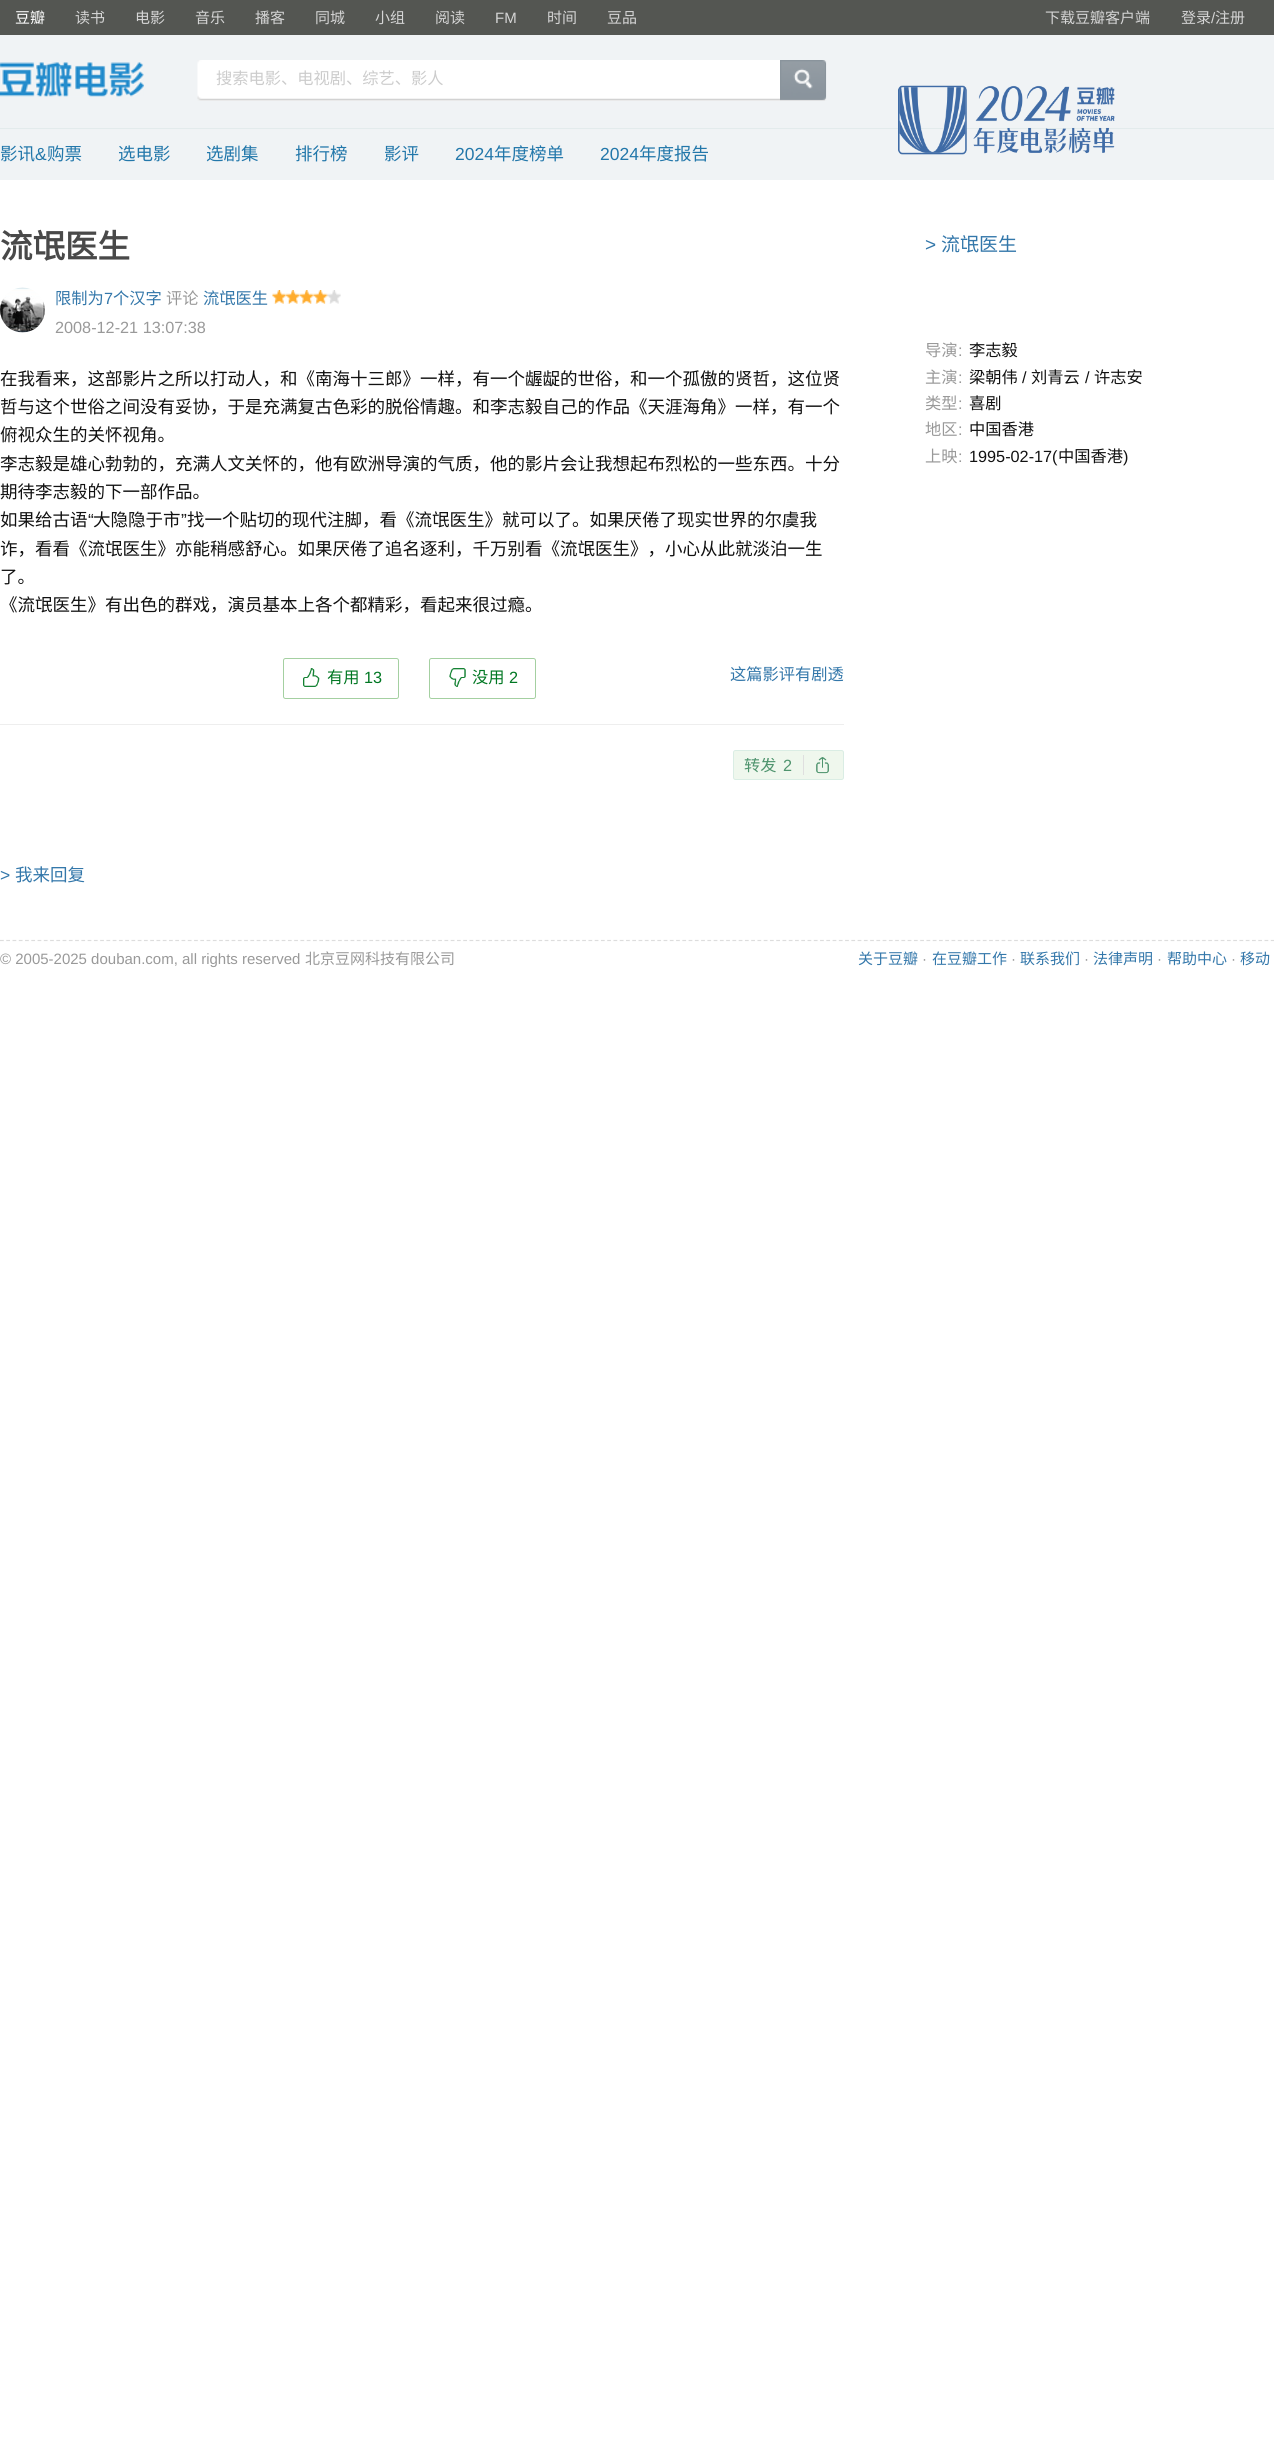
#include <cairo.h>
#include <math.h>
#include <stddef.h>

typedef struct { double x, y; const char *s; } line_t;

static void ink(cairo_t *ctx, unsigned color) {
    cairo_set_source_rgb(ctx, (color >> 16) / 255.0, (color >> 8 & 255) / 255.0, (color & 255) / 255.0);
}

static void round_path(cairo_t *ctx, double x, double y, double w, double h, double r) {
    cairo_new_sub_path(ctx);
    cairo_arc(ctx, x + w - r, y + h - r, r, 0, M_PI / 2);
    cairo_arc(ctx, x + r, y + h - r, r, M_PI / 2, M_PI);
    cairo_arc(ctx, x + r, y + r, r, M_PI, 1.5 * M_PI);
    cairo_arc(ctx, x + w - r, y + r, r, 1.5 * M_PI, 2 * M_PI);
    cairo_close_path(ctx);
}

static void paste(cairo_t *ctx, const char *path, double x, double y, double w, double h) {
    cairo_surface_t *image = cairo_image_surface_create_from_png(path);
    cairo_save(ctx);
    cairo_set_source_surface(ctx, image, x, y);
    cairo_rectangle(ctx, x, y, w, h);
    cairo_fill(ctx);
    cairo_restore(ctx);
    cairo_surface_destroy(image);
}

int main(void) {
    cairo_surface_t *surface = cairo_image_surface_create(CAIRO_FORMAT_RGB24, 1274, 2451);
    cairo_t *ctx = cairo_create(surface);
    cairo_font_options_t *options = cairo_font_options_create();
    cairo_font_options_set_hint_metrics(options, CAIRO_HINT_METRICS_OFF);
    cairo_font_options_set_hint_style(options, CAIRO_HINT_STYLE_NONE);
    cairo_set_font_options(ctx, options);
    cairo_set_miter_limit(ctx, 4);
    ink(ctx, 0xFFFFFF);
    cairo_paint(ctx);
    ink(ctx, 0x545652);
    cairo_rectangle(ctx, 0, 0, 1274, 35);
    cairo_fill(ctx);
    cairo_select_font_face(ctx, "Noto Sans CJK SC", CAIRO_FONT_SLANT_NORMAL, CAIRO_FONT_WEIGHT_NORMAL);
    cairo_set_font_size(ctx, 15);
    ink(ctx, 0xFFFFFF);
    cairo_move_to(ctx, 15, 23);
    cairo_show_text(ctx, "豆瓣");
    ink(ctx, 0xD5D5D5);
    {
        static const line_t items[] = {
            {75, 23, "读书"},
            {135, 23, "电影"},
            {195, 23, "音乐"},
            {255, 23, "播客"},
            {315, 23, "同城"},
            {375, 23, "小组"},
            {435, 23, "阅读"},
        };
        for (size_t i = 0; i < sizeof items / sizeof *items; i++) {
            cairo_move_to(ctx, items[i].x, items[i].y);
            cairo_show_text(ctx, items[i].s);
        }
    }
    cairo_select_font_face(ctx, "Liberation Sans", CAIRO_FONT_SLANT_NORMAL, CAIRO_FONT_WEIGHT_NORMAL);
    cairo_move_to(ctx, 495, 23);
    cairo_show_text(ctx, "FM");
    cairo_select_font_face(ctx, "Noto Sans CJK SC", CAIRO_FONT_SLANT_NORMAL, CAIRO_FONT_WEIGHT_NORMAL);
    {
        static const line_t items[] = {
            {547, 23, "时间"},
            {607, 23, "豆品"},
            {1045, 23, "下载豆瓣客户端"},
            {1181, 23, "登录"},
        };
        for (size_t i = 0; i < sizeof items / sizeof *items; i++) {
            cairo_move_to(ctx, items[i].x, items[i].y);
            cairo_show_text(ctx, items[i].s);
        }
    }
    cairo_select_font_face(ctx, "Liberation Sans", CAIRO_FONT_SLANT_NORMAL, CAIRO_FONT_WEIGHT_NORMAL);
    cairo_move_to(ctx, 1211, 23);
    cairo_show_text(ctx, "/");
    cairo_select_font_face(ctx, "Noto Sans CJK SC", CAIRO_FONT_SLANT_NORMAL, CAIRO_FONT_WEIGHT_NORMAL);
    cairo_move_to(ctx, 1215, 23);
    cairo_show_text(ctx, "注册");
    ink(ctx, 0xF0F3F5);
    cairo_rectangle(ctx, 0, 35, 1274, 145);
    cairo_fill(ctx);
    ink(ctx, 0xE3EBEC);
    cairo_rectangle(ctx, 0, 128, 1274, 1);
    cairo_fill(ctx);
    paste(ctx, "media/1.png", 0, 62, 144, 35);
    paste(ctx, "media/2.png", 197, 60, 583, 41);
    cairo_set_font_size(ctx, 16.25);
    ink(ctx, 0xCCCCCC);
    cairo_move_to(ctx, 216, 84);
    cairo_show_text(ctx, "搜索电影、电视剧、综艺、影人");
    paste(ctx, "media/3.png", 780, 60, 47, 41);
    cairo_set_font_size(ctx, 17.5);
    ink(ctx, 0x2277AA);
    cairo_move_to(ctx, 0, 160);
    cairo_show_text(ctx, "影讯");
    cairo_select_font_face(ctx, "Liberation Sans", CAIRO_FONT_SLANT_NORMAL, CAIRO_FONT_WEIGHT_NORMAL);
    cairo_move_to(ctx, 35, 160);
    cairo_show_text(ctx, "&");
    cairo_select_font_face(ctx, "Noto Sans CJK SC", CAIRO_FONT_SLANT_NORMAL, CAIRO_FONT_WEIGHT_NORMAL);
    {
        static const line_t items[] = {
            {47, 160, "购票"},
            {118, 160, "选电影"},
            {206, 160, "选剧集"},
            {295, 160, "排行榜"},
            {384, 160, "影评"},
        };
        for (size_t i = 0; i < sizeof items / sizeof *items; i++) {
            cairo_move_to(ctx, items[i].x, items[i].y);
            cairo_show_text(ctx, items[i].s);
        }
    }
    cairo_select_font_face(ctx, "Liberation Sans", CAIRO_FONT_SLANT_NORMAL, CAIRO_FONT_WEIGHT_NORMAL);
    cairo_move_to(ctx, 455, 160);
    cairo_show_text(ctx, "2024");
    cairo_select_font_face(ctx, "Noto Sans CJK SC", CAIRO_FONT_SLANT_NORMAL, CAIRO_FONT_WEIGHT_NORMAL);
    cairo_move_to(ctx, 494, 160);
    cairo_show_text(ctx, "年度榜单");
    cairo_select_font_face(ctx, "Liberation Sans", CAIRO_FONT_SLANT_NORMAL, CAIRO_FONT_WEIGHT_NORMAL);
    cairo_move_to(ctx, 600, 160);
    cairo_show_text(ctx, "2024");
    cairo_select_font_face(ctx, "Noto Sans CJK SC", CAIRO_FONT_SLANT_NORMAL, CAIRO_FONT_WEIGHT_NORMAL);
    cairo_move_to(ctx, 639, 160);
    cairo_show_text(ctx, "年度报告");
    paste(ctx, "media/4.png", 898, 85, 217, 70);
    cairo_select_font_face(ctx, "Noto Sans CJK SC", CAIRO_FONT_SLANT_NORMAL, CAIRO_FONT_WEIGHT_BOLD);
    cairo_set_font_size(ctx, 32.5);
    ink(ctx, 0x494949);
    cairo_move_to(ctx, 0, 258);
    cairo_show_text(ctx, "流氓医生");
    paste(ctx, "media/5.png", 0, 287, 45, 46);
    cairo_select_font_face(ctx, "Noto Sans CJK SC", CAIRO_FONT_SLANT_NORMAL, CAIRO_FONT_WEIGHT_NORMAL);
    cairo_set_font_size(ctx, 16.25);
    ink(ctx, 0x3377AA);
    cairo_move_to(ctx, 55, 304);
    cairo_show_text(ctx, "限制为");
    cairo_select_font_face(ctx, "Liberation Sans", CAIRO_FONT_SLANT_NORMAL, CAIRO_FONT_WEIGHT_NORMAL);
    cairo_move_to(ctx, 104, 304);
    cairo_show_text(ctx, "7");
    cairo_select_font_face(ctx, "Noto Sans CJK SC", CAIRO_FONT_SLANT_NORMAL, CAIRO_FONT_WEIGHT_NORMAL);
    cairo_move_to(ctx, 113, 304);
    cairo_show_text(ctx, "个汉字");
    ink(ctx, 0x999999);
    cairo_move_to(ctx, 166, 304);
    cairo_show_text(ctx, "评论");
    ink(ctx, 0x3377AA);
    cairo_move_to(ctx, 203, 304);
    cairo_show_text(ctx, "流氓医生");
    paste(ctx, "media/6.png", 272, 290, 69, 14);
    cairo_select_font_face(ctx, "Liberation Sans", CAIRO_FONT_SLANT_NORMAL, CAIRO_FONT_WEIGHT_NORMAL);
    ink(ctx, 0x999999);
    cairo_move_to(ctx, 55, 333);
    cairo_show_text(ctx, "2008-12-21 13:07:38");
    cairo_select_font_face(ctx, "Noto Sans CJK SC", CAIRO_FONT_SLANT_NORMAL, CAIRO_FONT_WEIGHT_NORMAL);
    cairo_set_font_size(ctx, 17.5);
    ink(ctx, 0x111111);
    {
        static const line_t items[] = {
            {0, 385, "在我看来，这部影片之所以打动人，和《南海十三郎》一样，有一个龌龊的世俗，和一个孤傲的贤哲，这位贤"},
            {0, 413, "哲与这个世俗之间没有妥协，于是充满复古色彩的脱俗情趣。和李志毅自己的作品《天涯海角》一样，有一个"},
            {0, 441, "俯视众生的关怀视角。"},
            {0, 470, "李志毅是雄心勃勃的，充满人文关怀的，他有欧洲导演的气质，他的影片会让我想起布烈松的一些东西。十分"},
            {0, 498, "期待李志毅的下一部作品。"},
            {0, 526, "如果给古语"},
        };
        for (size_t i = 0; i < sizeof items / sizeof *items; i++) {
            cairo_move_to(ctx, items[i].x, items[i].y);
            cairo_show_text(ctx, items[i].s);
        }
    }
    cairo_select_font_face(ctx, "Liberation Sans", CAIRO_FONT_SLANT_NORMAL, CAIRO_FONT_WEIGHT_NORMAL);
    cairo_move_to(ctx, 88, 526);
    cairo_show_text(ctx, "“");
    cairo_select_font_face(ctx, "Noto Sans CJK SC", CAIRO_FONT_SLANT_NORMAL, CAIRO_FONT_WEIGHT_NORMAL);
    cairo_move_to(ctx, 93, 526);
    cairo_show_text(ctx, "大隐隐于市");
    cairo_select_font_face(ctx, "Liberation Sans", CAIRO_FONT_SLANT_NORMAL, CAIRO_FONT_WEIGHT_NORMAL);
    cairo_move_to(ctx, 181, 526);
    cairo_show_text(ctx, "”");
    cairo_select_font_face(ctx, "Noto Sans CJK SC", CAIRO_FONT_SLANT_NORMAL, CAIRO_FONT_WEIGHT_NORMAL);
    {
        static const line_t items[] = {
            {187, 526, "找一个贴切的现代注脚，看《流氓医生》就可以了。如果厌倦了现实世界的尔虞我"},
            {0, 555, "诈，看看《流氓医生》亦能稍感舒心。如果厌倦了追名逐利，千万别看《流氓医生》，小心从此就淡泊一生"},
            {0, 583, "了。"},
            {0, 611, "《流氓医生》有出色的群戏，演员基本上各个都精彩，看起来很过瘾。"},
        };
        for (size_t i = 0; i < sizeof items / sizeof *items; i++) {
            cairo_move_to(ctx, items[i].x, items[i].y);
            cairo_show_text(ctx, items[i].s);
        }
    }
    ink(ctx, 0xEEEEEE);
    cairo_rectangle(ctx, 0, 724, 844, 1);
    cairo_fill(ctx);
    round_path(ctx, 283.5, 658.5, 115, 40, 2);
    ink(ctx, 0xA4D0A1);
    cairo_set_line_width(ctx, 1);
    cairo_stroke(ctx);
    paste(ctx, "media/7.png", 303, 668, 17, 19);
    cairo_set_font_size(ctx, 16.25);
    ink(ctx, 0x007722);
    cairo_move_to(ctx, 327, 683);
    cairo_show_text(ctx, "有用");
    cairo_select_font_face(ctx, "Liberation Sans", CAIRO_FONT_SLANT_NORMAL, CAIRO_FONT_WEIGHT_NORMAL);
    cairo_move_to(ctx, 364, 683);
    cairo_show_text(ctx, "13");
    round_path(ctx, 429.5, 658.5, 106, 40, 2);
    ink(ctx, 0xA4D0A1);
    cairo_stroke(ctx);
    paste(ctx, "media/8.png", 449, 668, 17, 19);
    cairo_select_font_face(ctx, "Noto Sans CJK SC", CAIRO_FONT_SLANT_NORMAL, CAIRO_FONT_WEIGHT_NORMAL);
    ink(ctx, 0x007722);
    cairo_move_to(ctx, 472, 683);
    cairo_show_text(ctx, "没用");
    cairo_select_font_face(ctx, "Liberation Sans", CAIRO_FONT_SLANT_NORMAL, CAIRO_FONT_WEIGHT_NORMAL);
    cairo_move_to(ctx, 509, 683);
    cairo_show_text(ctx, "2");
    cairo_select_font_face(ctx, "Noto Sans CJK SC", CAIRO_FONT_SLANT_NORMAL, CAIRO_FONT_WEIGHT_NORMAL);
    ink(ctx, 0x3377AA);
    cairo_move_to(ctx, 730, 680);
    cairo_show_text(ctx, "这篇影评有剧透");
    ink(ctx, 0xEFF7ED);
    round_path(ctx, 733.5, 750.5, 110, 29, 2);
    cairo_fill_preserve(ctx);
    ink(ctx, 0xDAEDE4);
    cairo_stroke(ctx);
    cairo_save(ctx);
    round_path(ctx, 734, 758, 69, 16, 4);
    cairo_clip(ctx);
    ink(ctx, 0x4F946E);
    cairo_move_to(ctx, 744, 771);
    cairo_show_text(ctx, "转发");
    cairo_restore(ctx);
    cairo_select_font_face(ctx, "Liberation Sans", CAIRO_FONT_SLANT_NORMAL, CAIRO_FONT_WEIGHT_NORMAL);
    ink(ctx, 0x4F946E);
    cairo_move_to(ctx, 783, 771);
    cairo_show_text(ctx, "2");
    ink(ctx, 0xDFDFDF);
    cairo_rectangle(ctx, 803, 755, 1, 20);
    cairo_fill(ctx);
    paste(ctx, "media/9.png", 816, 757, 13, 17);
    cairo_set_font_size(ctx, 17.5);
    ink(ctx, 0x3377AA);
    cairo_move_to(ctx, 0, 881);
    cairo_show_text(ctx, ">");
    cairo_select_font_face(ctx, "Noto Sans CJK SC", CAIRO_FONT_SLANT_NORMAL, CAIRO_FONT_WEIGHT_NORMAL);
    cairo_move_to(ctx, 15, 881);
    cairo_show_text(ctx, "我来回复");
    cairo_select_font_face(ctx, "Liberation Sans", CAIRO_FONT_SLANT_NORMAL, CAIRO_FONT_WEIGHT_NORMAL);
    cairo_set_font_size(ctx, 19);
    cairo_move_to(ctx, 925, 251);
    cairo_show_text(ctx, ">");
    cairo_select_font_face(ctx, "Noto Sans CJK SC", CAIRO_FONT_SLANT_NORMAL, CAIRO_FONT_WEIGHT_NORMAL);
    cairo_move_to(ctx, 941, 251);
    cairo_show_text(ctx, "流氓医生");
    cairo_set_font_size(ctx, 16.25);
    ink(ctx, 0x999999);
    cairo_move_to(ctx, 925, 356);
    cairo_show_text(ctx, "导演");
    cairo_select_font_face(ctx, "Liberation Sans", CAIRO_FONT_SLANT_NORMAL, CAIRO_FONT_WEIGHT_NORMAL);
    cairo_move_to(ctx, 958, 356);
    cairo_show_text(ctx, ":");
    cairo_select_font_face(ctx, "Noto Sans CJK SC", CAIRO_FONT_SLANT_NORMAL, CAIRO_FONT_WEIGHT_NORMAL);
    ink(ctx, 0x111111);
    cairo_move_to(ctx, 969, 356);
    cairo_show_text(ctx, "李志毅");
    ink(ctx, 0x999999);
    cairo_move_to(ctx, 925, 383);
    cairo_show_text(ctx, "主演");
    cairo_select_font_face(ctx, "Liberation Sans", CAIRO_FONT_SLANT_NORMAL, CAIRO_FONT_WEIGHT_NORMAL);
    cairo_move_to(ctx, 958, 383);
    cairo_show_text(ctx, ":");
    cairo_select_font_face(ctx, "Noto Sans CJK SC", CAIRO_FONT_SLANT_NORMAL, CAIRO_FONT_WEIGHT_NORMAL);
    ink(ctx, 0x111111);
    cairo_move_to(ctx, 969, 383);
    cairo_show_text(ctx, "梁朝伟");
    cairo_select_font_face(ctx, "Liberation Sans", CAIRO_FONT_SLANT_NORMAL, CAIRO_FONT_WEIGHT_NORMAL);
    cairo_move_to(ctx, 1022, 383);
    cairo_show_text(ctx, "/");
    cairo_select_font_face(ctx, "Noto Sans CJK SC", CAIRO_FONT_SLANT_NORMAL, CAIRO_FONT_WEIGHT_NORMAL);
    cairo_move_to(ctx, 1031, 383);
    cairo_show_text(ctx, "刘青云");
    cairo_select_font_face(ctx, "Liberation Sans", CAIRO_FONT_SLANT_NORMAL, CAIRO_FONT_WEIGHT_NORMAL);
    cairo_move_to(ctx, 1085, 383);
    cairo_show_text(ctx, "/");
    cairo_select_font_face(ctx, "Noto Sans CJK SC", CAIRO_FONT_SLANT_NORMAL, CAIRO_FONT_WEIGHT_NORMAL);
    cairo_move_to(ctx, 1094, 383);
    cairo_show_text(ctx, "许志安");
    ink(ctx, 0x999999);
    cairo_move_to(ctx, 925, 409);
    cairo_show_text(ctx, "类型");
    cairo_select_font_face(ctx, "Liberation Sans", CAIRO_FONT_SLANT_NORMAL, CAIRO_FONT_WEIGHT_NORMAL);
    cairo_move_to(ctx, 958, 409);
    cairo_show_text(ctx, ":");
    cairo_select_font_face(ctx, "Noto Sans CJK SC", CAIRO_FONT_SLANT_NORMAL, CAIRO_FONT_WEIGHT_NORMAL);
    ink(ctx, 0x111111);
    cairo_move_to(ctx, 969, 409);
    cairo_show_text(ctx, "喜剧");
    ink(ctx, 0x999999);
    cairo_move_to(ctx, 925, 435);
    cairo_show_text(ctx, "地区");
    cairo_select_font_face(ctx, "Liberation Sans", CAIRO_FONT_SLANT_NORMAL, CAIRO_FONT_WEIGHT_NORMAL);
    cairo_move_to(ctx, 958, 435);
    cairo_show_text(ctx, ":");
    cairo_select_font_face(ctx, "Noto Sans CJK SC", CAIRO_FONT_SLANT_NORMAL, CAIRO_FONT_WEIGHT_NORMAL);
    ink(ctx, 0x111111);
    cairo_move_to(ctx, 969, 435);
    cairo_show_text(ctx, "中国香港");
    ink(ctx, 0x999999);
    cairo_move_to(ctx, 925, 462);
    cairo_show_text(ctx, "上映");
    cairo_select_font_face(ctx, "Liberation Sans", CAIRO_FONT_SLANT_NORMAL, CAIRO_FONT_WEIGHT_NORMAL);
    cairo_move_to(ctx, 958, 462);
    cairo_show_text(ctx, ":");
    ink(ctx, 0x111111);
    cairo_move_to(ctx, 969, 462);
    cairo_show_text(ctx, "1995-02-17(");
    cairo_select_font_face(ctx, "Noto Sans CJK SC", CAIRO_FONT_SLANT_NORMAL, CAIRO_FONT_WEIGHT_NORMAL);
    cairo_move_to(ctx, 1058, 462);
    cairo_show_text(ctx, "中国香港");
    cairo_select_font_face(ctx, "Liberation Sans", CAIRO_FONT_SLANT_NORMAL, CAIRO_FONT_WEIGHT_NORMAL);
    cairo_move_to(ctx, 1123, 462);
    cairo_show_text(ctx, ")");
    cairo_new_path(ctx);
    cairo_move_to(ctx, 0, 940.5);
    cairo_line_to(ctx, 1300, 940.5);
    ink(ctx, 0xDDDDDD);
    cairo_set_line_width(ctx, 1.2);
    cairo_set_dash(ctx, (double[]){3.75, 2.51}, 2, 0);
    cairo_stroke(ctx);
    cairo_set_font_size(ctx, 15);
    ink(ctx, 0x999999);
    cairo_move_to(ctx, 0, 964);
    cairo_show_text(ctx, "© 2005-2025 douban.com, all rights reserved");
    cairo_select_font_face(ctx, "Noto Sans CJK SC", CAIRO_FONT_SLANT_NORMAL, CAIRO_FONT_WEIGHT_NORMAL);
    cairo_move_to(ctx, 305, 964);
    cairo_show_text(ctx, "北京豆网科技有限公司");
    ink(ctx, 0x3377AA);
    cairo_move_to(ctx, 858, 964);
    cairo_show_text(ctx, "关于豆瓣");
    cairo_select_font_face(ctx, "Liberation Sans", CAIRO_FONT_SLANT_NORMAL, CAIRO_FONT_WEIGHT_NORMAL);
    ink(ctx, 0x999999);
    cairo_move_to(ctx, 922, 964);
    cairo_show_text(ctx, "·");
    cairo_select_font_face(ctx, "Noto Sans CJK SC", CAIRO_FONT_SLANT_NORMAL, CAIRO_FONT_WEIGHT_NORMAL);
    ink(ctx, 0x3377AA);
    cairo_move_to(ctx, 932, 964);
    cairo_show_text(ctx, "在豆瓣工作");
    cairo_select_font_face(ctx, "Liberation Sans", CAIRO_FONT_SLANT_NORMAL, CAIRO_FONT_WEIGHT_NORMAL);
    ink(ctx, 0x999999);
    cairo_move_to(ctx, 1011, 964);
    cairo_show_text(ctx, "·");
    cairo_select_font_face(ctx, "Noto Sans CJK SC", CAIRO_FONT_SLANT_NORMAL, CAIRO_FONT_WEIGHT_NORMAL);
    ink(ctx, 0x3377AA);
    cairo_move_to(ctx, 1020, 964);
    cairo_show_text(ctx, "联系我们");
    cairo_select_font_face(ctx, "Liberation Sans", CAIRO_FONT_SLANT_NORMAL, CAIRO_FONT_WEIGHT_NORMAL);
    ink(ctx, 0x999999);
    cairo_move_to(ctx, 1084, 964);
    cairo_show_text(ctx, "·");
    cairo_select_font_face(ctx, "Noto Sans CJK SC", CAIRO_FONT_SLANT_NORMAL, CAIRO_FONT_WEIGHT_NORMAL);
    ink(ctx, 0x3377AA);
    cairo_move_to(ctx, 1093, 964);
    cairo_show_text(ctx, "法律声明");
    cairo_select_font_face(ctx, "Liberation Sans", CAIRO_FONT_SLANT_NORMAL, CAIRO_FONT_WEIGHT_NORMAL);
    ink(ctx, 0x999999);
    cairo_move_to(ctx, 1157, 964);
    cairo_show_text(ctx, "·");
    cairo_select_font_face(ctx, "Noto Sans CJK SC", CAIRO_FONT_SLANT_NORMAL, CAIRO_FONT_WEIGHT_NORMAL);
    ink(ctx, 0x3377AA);
    cairo_move_to(ctx, 1167, 964);
    cairo_show_text(ctx, "帮助中心");
    cairo_select_font_face(ctx, "Liberation Sans", CAIRO_FONT_SLANT_NORMAL, CAIRO_FONT_WEIGHT_NORMAL);
    ink(ctx, 0x999999);
    cairo_move_to(ctx, 1231, 964);
    cairo_show_text(ctx, "·");
    cairo_select_font_face(ctx, "Noto Sans CJK SC", CAIRO_FONT_SLANT_NORMAL, CAIRO_FONT_WEIGHT_NORMAL);
    ink(ctx, 0x3377AA);
    cairo_move_to(ctx, 1240, 964);
    cairo_show_text(ctx, "移动");
    cairo_surface_write_to_png(surface, "image.png");
    cairo_font_options_destroy(options);
    cairo_destroy(ctx);
    cairo_surface_destroy(surface);
    return 0;
}
